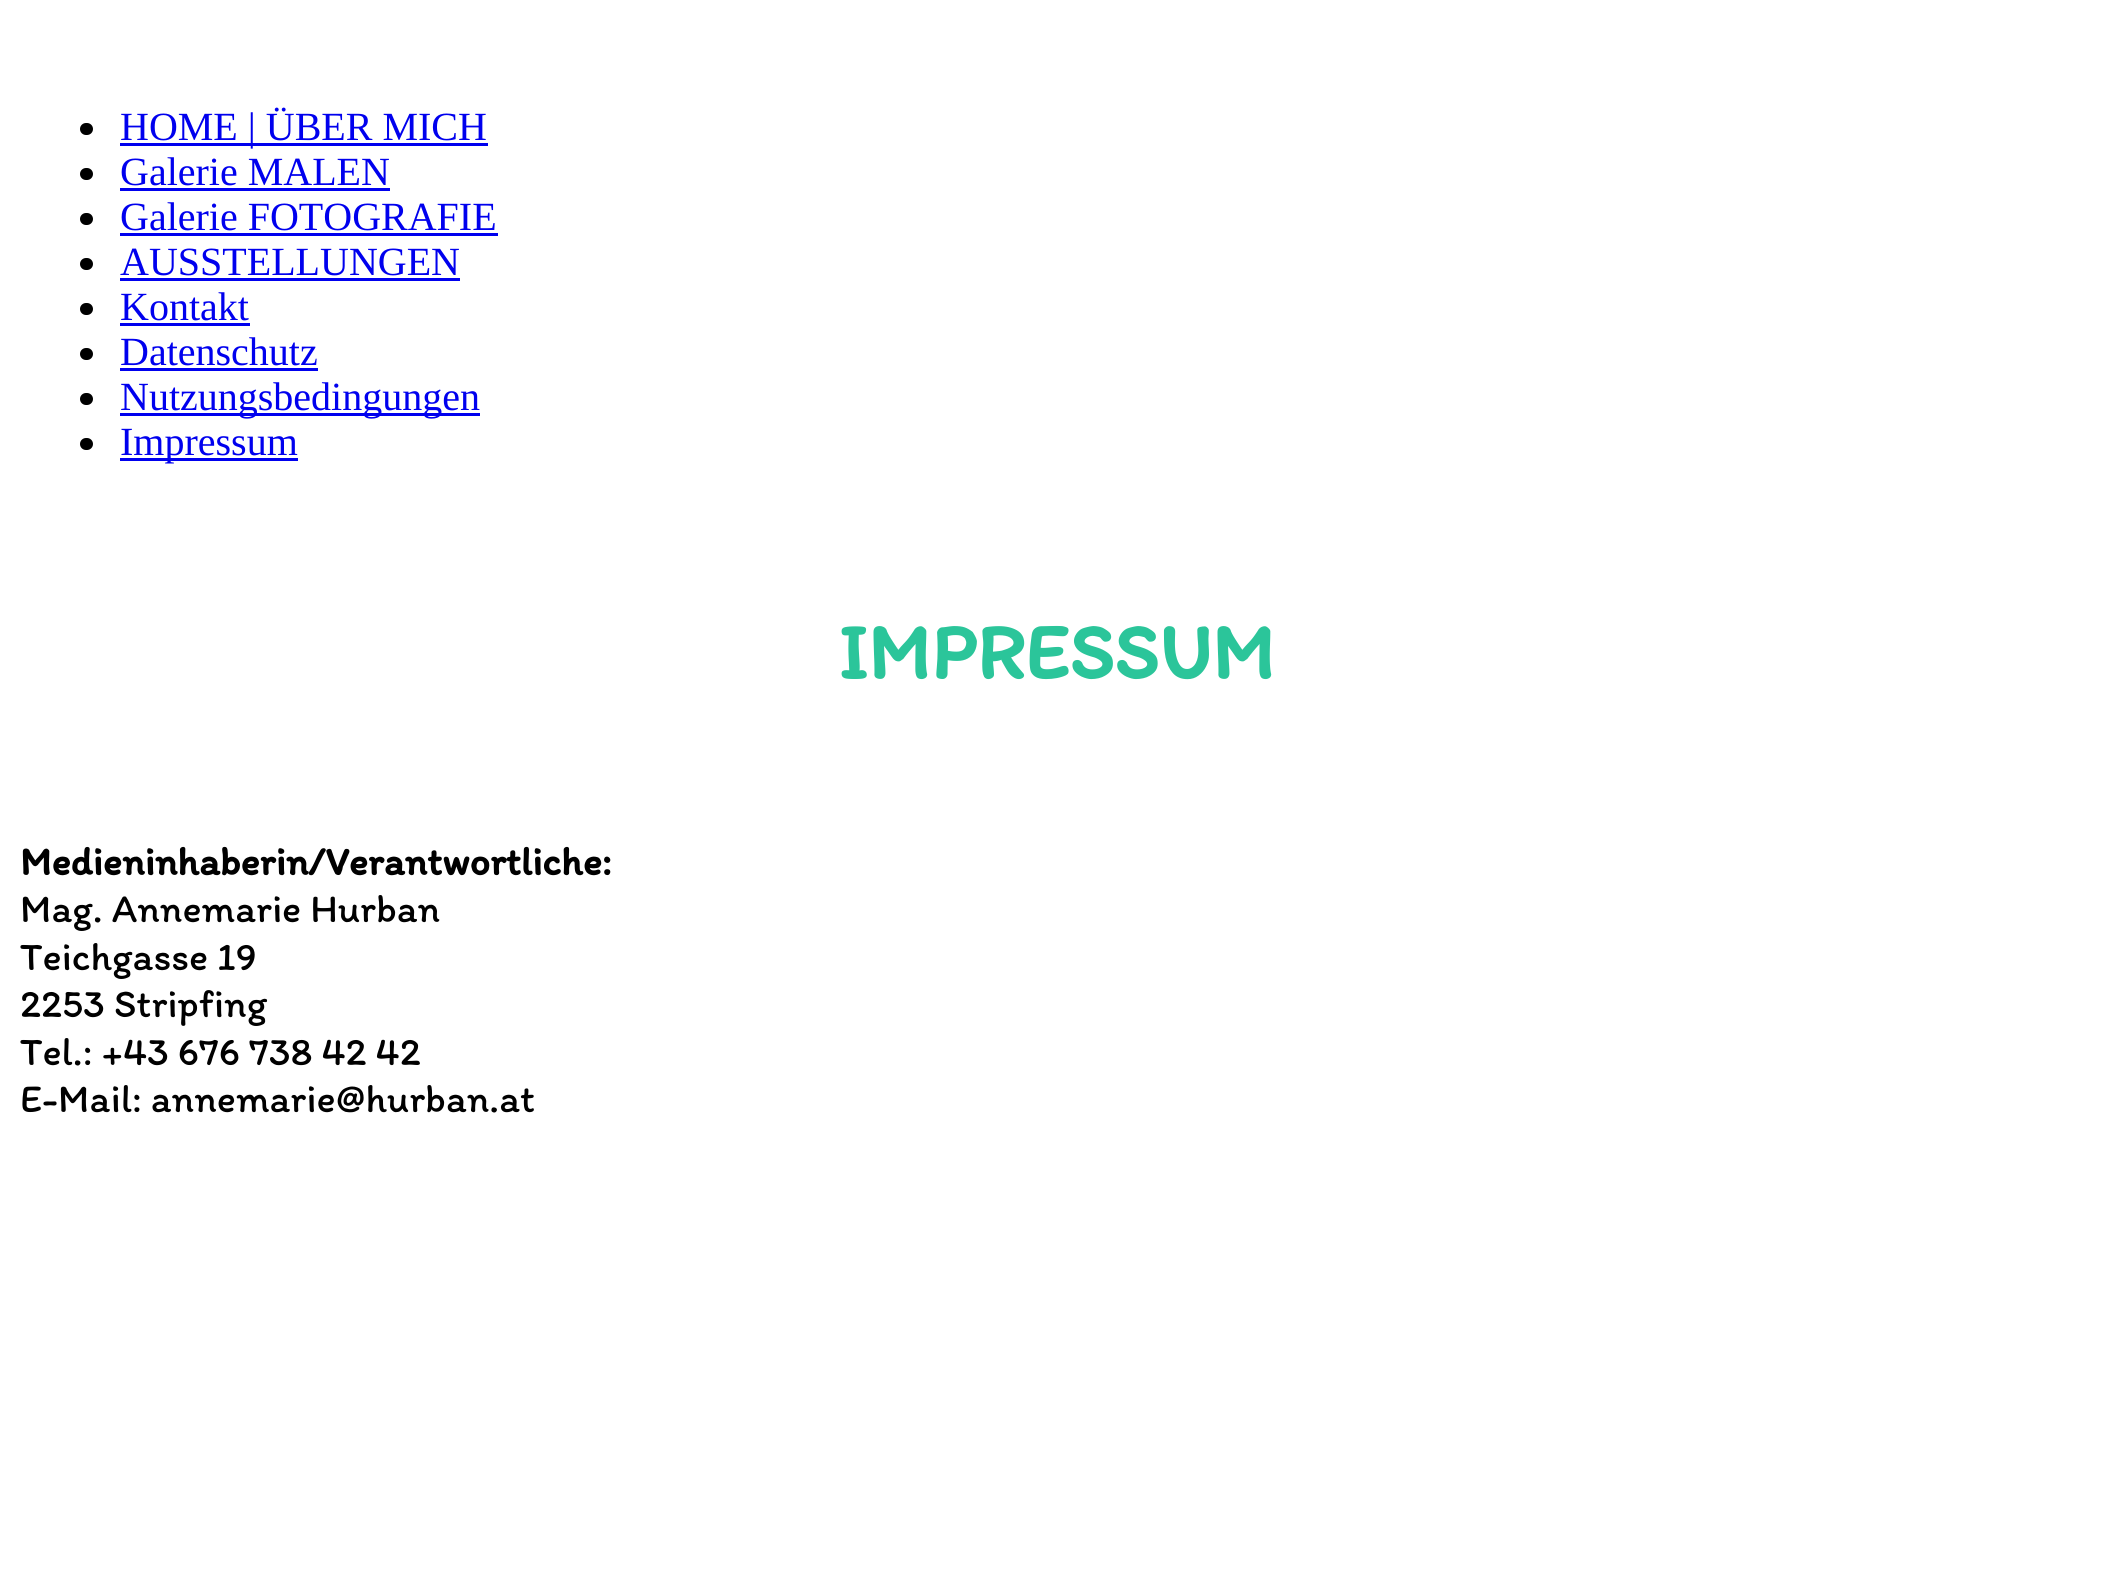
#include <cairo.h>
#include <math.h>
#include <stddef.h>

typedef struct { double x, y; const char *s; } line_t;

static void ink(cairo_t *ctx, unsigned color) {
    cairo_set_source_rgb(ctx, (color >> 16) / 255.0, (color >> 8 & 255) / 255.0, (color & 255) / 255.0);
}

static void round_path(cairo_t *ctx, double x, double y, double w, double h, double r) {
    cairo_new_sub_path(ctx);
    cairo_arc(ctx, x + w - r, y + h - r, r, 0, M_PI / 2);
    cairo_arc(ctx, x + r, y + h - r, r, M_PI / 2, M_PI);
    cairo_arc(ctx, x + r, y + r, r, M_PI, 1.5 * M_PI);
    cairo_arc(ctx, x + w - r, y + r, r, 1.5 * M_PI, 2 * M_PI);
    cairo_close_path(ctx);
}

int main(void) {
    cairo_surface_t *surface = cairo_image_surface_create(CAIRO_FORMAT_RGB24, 2112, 1594);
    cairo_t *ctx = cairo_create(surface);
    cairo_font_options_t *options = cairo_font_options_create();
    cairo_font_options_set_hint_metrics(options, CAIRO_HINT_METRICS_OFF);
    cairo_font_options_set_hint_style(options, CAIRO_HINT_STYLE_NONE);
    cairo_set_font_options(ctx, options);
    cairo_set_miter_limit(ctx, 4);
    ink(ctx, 0xFFFFFF);
    cairo_paint(ctx);
    ink(ctx, 0x000000);
    round_path(ctx, 80, 123, 13, 12, 6);
    cairo_fill(ctx);
    ink(ctx, 0x0000EE);
    cairo_rectangle(ctx, 120, 143, 368, 3);
    cairo_fill(ctx);
    cairo_select_font_face(ctx, "Liberation Serif", CAIRO_FONT_SLANT_NORMAL, CAIRO_FONT_WEIGHT_NORMAL);
    cairo_set_font_size(ctx, 40);
    cairo_move_to(ctx, 120, 140);
    cairo_show_text(ctx, "HOME | ÜBER MICH");
    ink(ctx, 0x000000);
    round_path(ctx, 80, 168, 13, 12, 6);
    cairo_fill(ctx);
    ink(ctx, 0x0000EE);
    cairo_move_to(ctx, 120, 185);
    cairo_show_text(ctx, "Galerie MALEN");
    cairo_rectangle(ctx, 120, 188, 270, 3);
    cairo_fill(ctx);
    ink(ctx, 0x000000);
    round_path(ctx, 80, 213, 13, 12, 6);
    cairo_fill(ctx);
    ink(ctx, 0x0000EE);
    cairo_move_to(ctx, 120, 230);
    cairo_show_text(ctx, "Galerie FOTOGRAFIE");
    cairo_rectangle(ctx, 120, 233, 378, 3);
    cairo_fill(ctx);
    ink(ctx, 0x000000);
    round_path(ctx, 80, 258, 13, 12, 6);
    cairo_fill(ctx);
    ink(ctx, 0x0000EE);
    cairo_move_to(ctx, 120, 275);
    cairo_show_text(ctx, "AUSSTELLUNGEN");
    cairo_rectangle(ctx, 120, 278, 340, 3);
    cairo_fill(ctx);
    ink(ctx, 0x000000);
    round_path(ctx, 80, 303, 13, 12, 6);
    cairo_fill(ctx);
    ink(ctx, 0x0000EE);
    cairo_move_to(ctx, 120, 320);
    cairo_show_text(ctx, "Kontakt");
    cairo_rectangle(ctx, 120, 323, 130, 3);
    cairo_fill(ctx);
    ink(ctx, 0x000000);
    round_path(ctx, 80, 348, 13, 12, 6);
    cairo_fill(ctx);
    ink(ctx, 0x0000EE);
    cairo_move_to(ctx, 120, 365);
    cairo_show_text(ctx, "Datenschutz");
    cairo_rectangle(ctx, 120, 368, 198, 3);
    cairo_fill(ctx);
    ink(ctx, 0x000000);
    round_path(ctx, 80, 393, 13, 12, 6);
    cairo_fill(ctx);
    ink(ctx, 0x0000EE);
    cairo_rectangle(ctx, 120, 413, 360, 3);
    cairo_fill(ctx);
    cairo_move_to(ctx, 120, 410);
    cairo_show_text(ctx, "Nutzungsbedingungen");
    ink(ctx, 0x000000);
    round_path(ctx, 80, 438, 13, 12, 6);
    cairo_fill(ctx);
    ink(ctx, 0x0000EE);
    cairo_rectangle(ctx, 120, 458, 178, 3);
    cairo_fill(ctx);
    cairo_move_to(ctx, 120, 455);
    cairo_show_text(ctx, "Impressum");
    cairo_select_font_face(ctx, "Itim", CAIRO_FONT_SLANT_NORMAL, CAIRO_FONT_WEIGHT_BOLD);
    cairo_set_font_size(ctx, 80);
    ink(ctx, 0x2BC59A);
    cairo_move_to(ctx, 838, 679);
    cairo_show_text(ctx, "IMPRESSUM");
    cairo_set_font_size(ctx, 40);
    ink(ctx, 0x000000);
    cairo_move_to(ctx, 20, 875);
    cairo_show_text(ctx, "Medieninhaberin/Verantwortliche:");
    cairo_select_font_face(ctx, "Itim", CAIRO_FONT_SLANT_NORMAL, CAIRO_FONT_WEIGHT_NORMAL);
    {
        static const line_t items[] = {
            {20, 922, "Mag. Annemarie Hurban"},
            {20, 970, "Teichgasse 19"},
            {20, 1017, "2253 Stripfing"},
            {20, 1065, "Tel.: +43 676 738 42 42"},
            {20, 1112, "E-Mail: annemarie@hurban.at"},
        };
        for (size_t i = 0; i < sizeof items / sizeof *items; i++) {
            cairo_move_to(ctx, items[i].x, items[i].y);
            cairo_show_text(ctx, items[i].s);
        }
    }
    cairo_surface_write_to_png(surface, "image.png");
    cairo_font_options_destroy(options);
    cairo_destroy(ctx);
    cairo_surface_destroy(surface);
    return 0;
}
